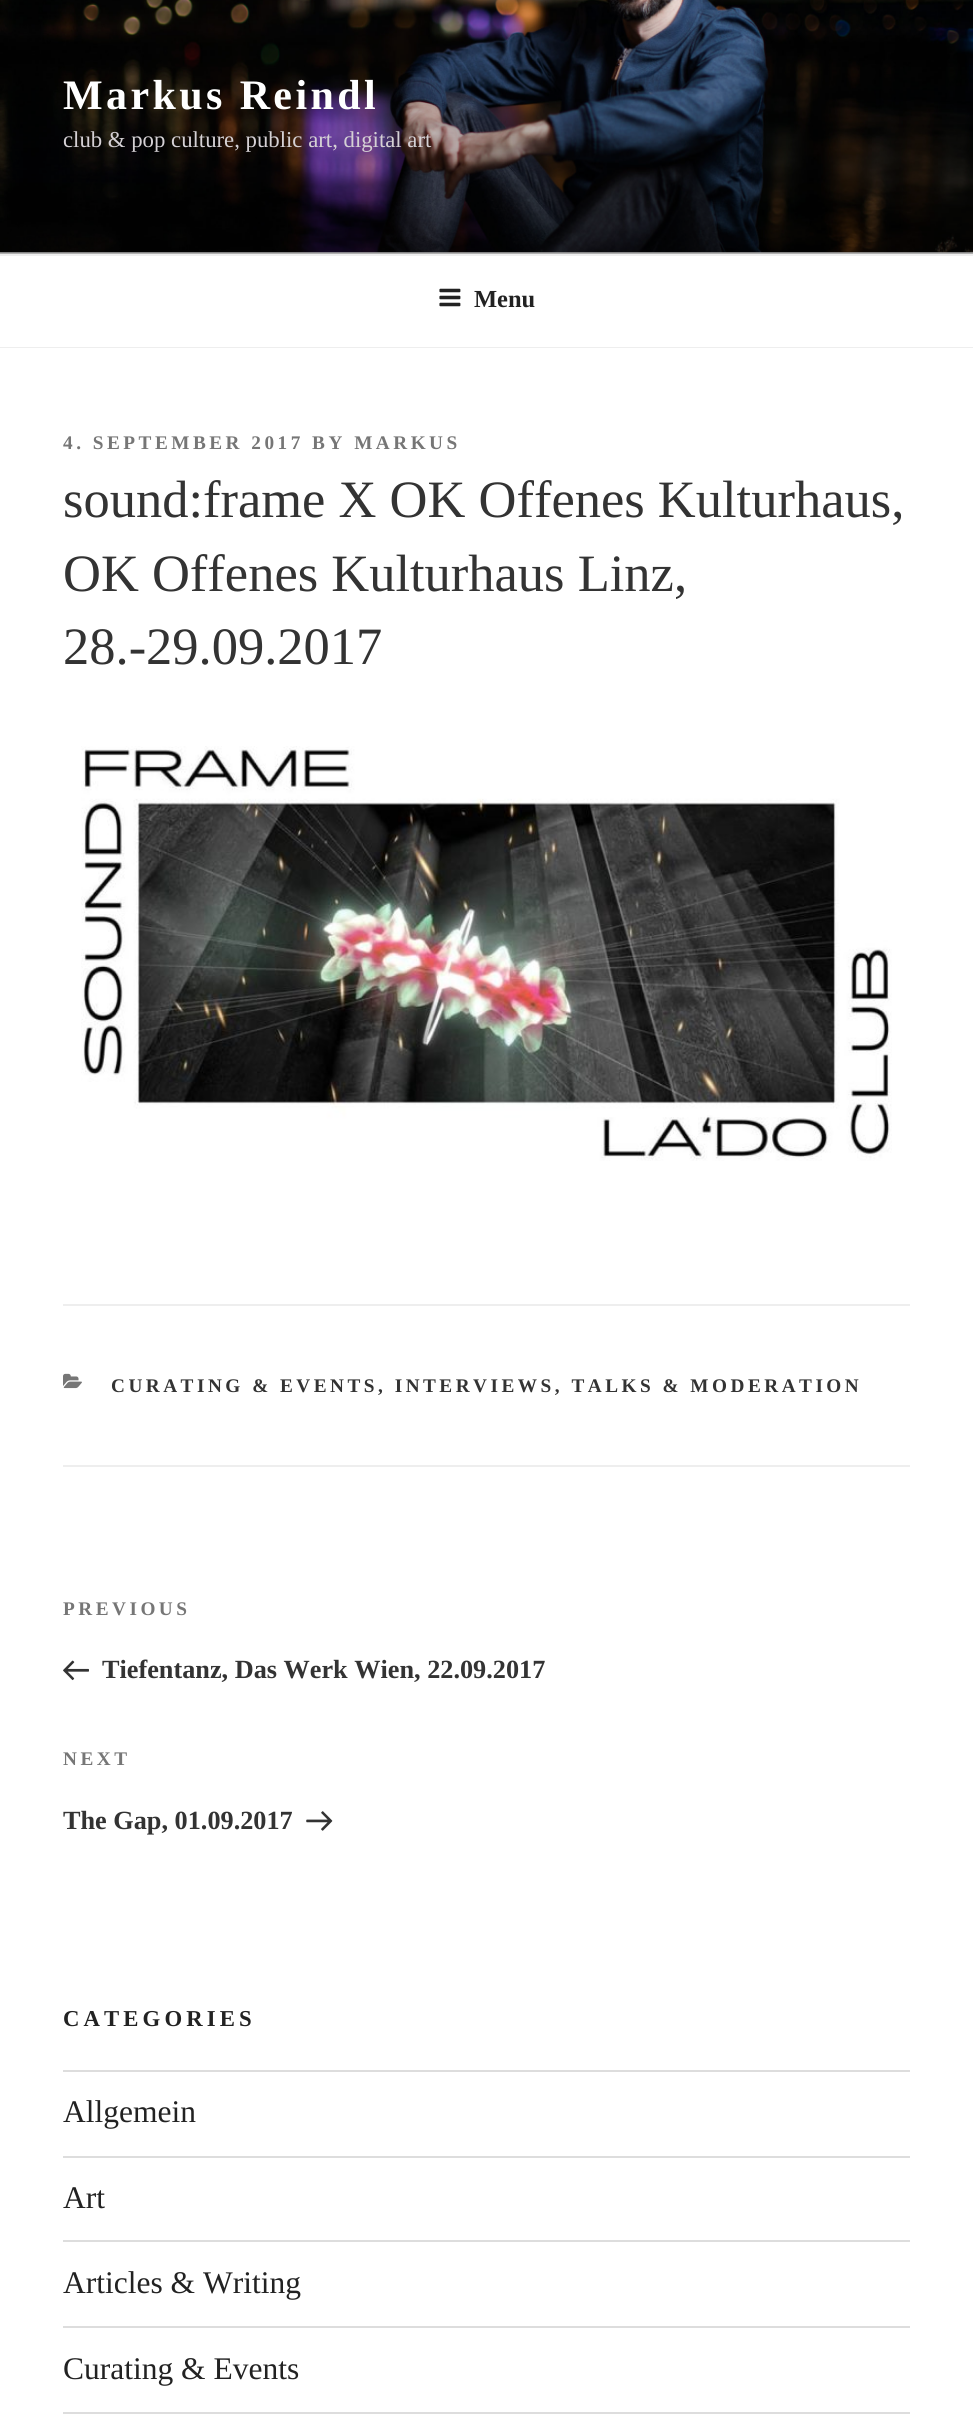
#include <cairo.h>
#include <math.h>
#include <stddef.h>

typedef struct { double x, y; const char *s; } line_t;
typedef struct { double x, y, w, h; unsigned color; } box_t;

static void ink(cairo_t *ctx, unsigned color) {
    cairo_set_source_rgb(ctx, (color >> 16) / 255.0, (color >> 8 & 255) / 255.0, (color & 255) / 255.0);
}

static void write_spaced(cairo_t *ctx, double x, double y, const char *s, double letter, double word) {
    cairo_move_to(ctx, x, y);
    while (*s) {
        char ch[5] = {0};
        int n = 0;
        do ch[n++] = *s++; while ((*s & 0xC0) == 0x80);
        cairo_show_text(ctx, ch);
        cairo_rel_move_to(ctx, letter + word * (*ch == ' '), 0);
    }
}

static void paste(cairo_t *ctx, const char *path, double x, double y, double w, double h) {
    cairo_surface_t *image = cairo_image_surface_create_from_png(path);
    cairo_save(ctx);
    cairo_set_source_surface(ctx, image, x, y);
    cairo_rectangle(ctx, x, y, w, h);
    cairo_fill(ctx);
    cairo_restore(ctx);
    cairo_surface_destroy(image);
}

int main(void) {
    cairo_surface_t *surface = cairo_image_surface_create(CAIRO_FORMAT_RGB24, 973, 2422);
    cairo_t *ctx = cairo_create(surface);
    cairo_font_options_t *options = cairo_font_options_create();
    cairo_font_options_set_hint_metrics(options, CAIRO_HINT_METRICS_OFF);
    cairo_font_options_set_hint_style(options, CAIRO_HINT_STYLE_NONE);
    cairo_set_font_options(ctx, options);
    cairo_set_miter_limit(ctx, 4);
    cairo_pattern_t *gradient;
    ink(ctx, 0xFAFAFA);
    cairo_paint(ctx);
    paste(ctx, "media/1.png", 0, 0, 973, 253);
    gradient = cairo_pattern_create_linear(487, -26, 487, 254);
    cairo_pattern_add_color_stop_rgba(gradient, 0, 0, 0, 0, 0);
    cairo_pattern_add_color_stop_rgba(gradient, 0.75, 0, 0, 0, 0.3);
    cairo_pattern_add_color_stop_rgba(gradient, 1, 0, 0, 0, 0.3);
    cairo_set_source(ctx, gradient);
    cairo_pattern_destroy(gradient);
    cairo_rectangle(ctx, 0, 0, 973, 254);
    cairo_fill(ctx);
    cairo_select_font_face(ctx, "Liberation Serif", CAIRO_FONT_SLANT_NORMAL, CAIRO_FONT_WEIGHT_BOLD);
    cairo_set_font_size(ctx, 42);
    ink(ctx, 0xFFFFFF);
    write_spaced(ctx, 63, 109, "Markus Reindl", 3.4, 0);
    cairo_select_font_face(ctx, "Liberation Serif", CAIRO_FONT_SLANT_NORMAL, CAIRO_FONT_WEIGHT_NORMAL);
    cairo_set_font_size(ctx, 22.75);
    ink(ctx, 0xD5D1D5);
    cairo_move_to(ctx, 63, 147);
    cairo_show_text(ctx, "club & pop culture, public art, digital art");
    {
        static const box_t items[] = {
            {0, 256, 973, 91, 0xFFFFFF},
            {0, 254, 973, 2, 0xEEEEEE},
            {0, 347, 973, 1, 0xEEEEEE},
        };
        for (size_t i = 0; i < sizeof items / sizeof *items; i++) {
            ink(ctx, items[i].color);
            cairo_rectangle(ctx, items[i].x, items[i].y, items[i].w, items[i].h);
            cairo_fill(ctx);
        }
    }
    paste(ctx, "media/2.png", 439, 288, 22, 19);
    cairo_select_font_face(ctx, "Liberation Serif", CAIRO_FONT_SLANT_NORMAL, CAIRO_FONT_WEIGHT_BOLD);
    cairo_set_font_size(ctx, 24.5);
    ink(ctx, 0x222222);
    cairo_move_to(ctx, 474, 307);
    cairo_show_text(ctx, "Menu");
    ink(ctx, 0xFFFFFF);
    cairo_rectangle(ctx, 0, 348, 973, 2074);
    cairo_fill(ctx);
    cairo_set_font_size(ctx, 19.25);
    ink(ctx, 0x767676);
    write_spaced(ctx, 63, 449, "4. SEPTEMBER 2017 BY MARKUS", 3.5, 0);
    cairo_select_font_face(ctx, "Liberation Serif", CAIRO_FONT_SLANT_NORMAL, CAIRO_FONT_WEIGHT_NORMAL);
    cairo_set_font_size(ctx, 52.5);
    ink(ctx, 0x333333);
    {
        static const line_t items[] = {
            {63, 517, "sound:frame X OK Offenes Kulturhaus,"},
            {63, 591, "OK Offenes Kulturhaus Linz,"},
            {63, 664, "28.-29.09.2017"},
        };
        for (size_t i = 0; i < sizeof items / sizeof *items; i++) {
            cairo_move_to(ctx, items[i].x, items[i].y);
            cairo_show_text(ctx, items[i].s);
        }
    }
    paste(ctx, "media/3.png", 81, 746, 811, 415);
    ink(ctx, 0xEEEEEE);
    cairo_rectangle(ctx, 63, 1304, 847, 2);
    cairo_fill(ctx);
    cairo_rectangle(ctx, 63, 1465, 847, 2);
    cairo_fill(ctx);
    paste(ctx, "media/4.png", 63, 1373, 19, 16);
    cairo_select_font_face(ctx, "Liberation Serif", CAIRO_FONT_SLANT_NORMAL, CAIRO_FONT_WEIGHT_BOLD);
    cairo_set_font_size(ctx, 19.25);
    ink(ctx, 0x333333);
    write_spaced(ctx, 111, 1392, "CURATING & EVENTS, INTERVIEWS, TALKS & MODERATION", 3.5, 0);
    ink(ctx, 0x767676);
    write_spaced(ctx, 63, 1615, "PREVIOUS", 3.5, 0);
    paste(ctx, "media/5.png", 63, 1660, 26, 21);
    cairo_set_font_size(ctx, 26.25);
    ink(ctx, 0x333333);
    cairo_move_to(ctx, 102, 1678);
    cairo_show_text(ctx, "Tiefentanz, Das Werk Wien, 22.09.2017");
    cairo_set_font_size(ctx, 19.25);
    ink(ctx, 0x767676);
    write_spaced(ctx, 63, 1765, "NEXT", 3.5, 0);
    cairo_set_font_size(ctx, 26.25);
    ink(ctx, 0x333333);
    cairo_move_to(ctx, 63, 1829);
    cairo_show_text(ctx, "The Gap, 01.09.2017");
    paste(ctx, "media/6.png", 306, 1811, 27, 20);
    cairo_set_font_size(ctx, 22.75);
    ink(ctx, 0x222222);
    write_spaced(ctx, 63, 2026, "CATEGORIES", 4.1, 0);
    ink(ctx, 0xDDDDDD);
    cairo_rectangle(ctx, 63, 2070, 847, 2);
    cairo_fill(ctx);
    cairo_rectangle(ctx, 63, 2156, 847, 2);
    cairo_fill(ctx);
    cairo_select_font_face(ctx, "Liberation Serif", CAIRO_FONT_SLANT_NORMAL, CAIRO_FONT_WEIGHT_NORMAL);
    cairo_set_font_size(ctx, 31.5);
    ink(ctx, 0x222222);
    cairo_move_to(ctx, 63, 2122);
    cairo_show_text(ctx, "Allgemein");
    ink(ctx, 0xDDDDDD);
    cairo_rectangle(ctx, 63, 2240, 847, 2);
    cairo_fill(ctx);
    ink(ctx, 0x222222);
    cairo_move_to(ctx, 63, 2208);
    cairo_show_text(ctx, "Art");
    ink(ctx, 0xDDDDDD);
    cairo_rectangle(ctx, 63, 2326, 847, 2);
    cairo_fill(ctx);
    ink(ctx, 0x222222);
    cairo_move_to(ctx, 63, 2293);
    cairo_show_text(ctx, "Articles & Writing");
    ink(ctx, 0xDDDDDD);
    cairo_rectangle(ctx, 63, 2412, 847, 2);
    cairo_fill(ctx);
    ink(ctx, 0x222222);
    cairo_move_to(ctx, 63, 2379);
    cairo_show_text(ctx, "Curating & Events");
    cairo_surface_write_to_png(surface, "image.png");
    cairo_font_options_destroy(options);
    cairo_destroy(ctx);
    cairo_surface_destroy(surface);
    return 0;
}
